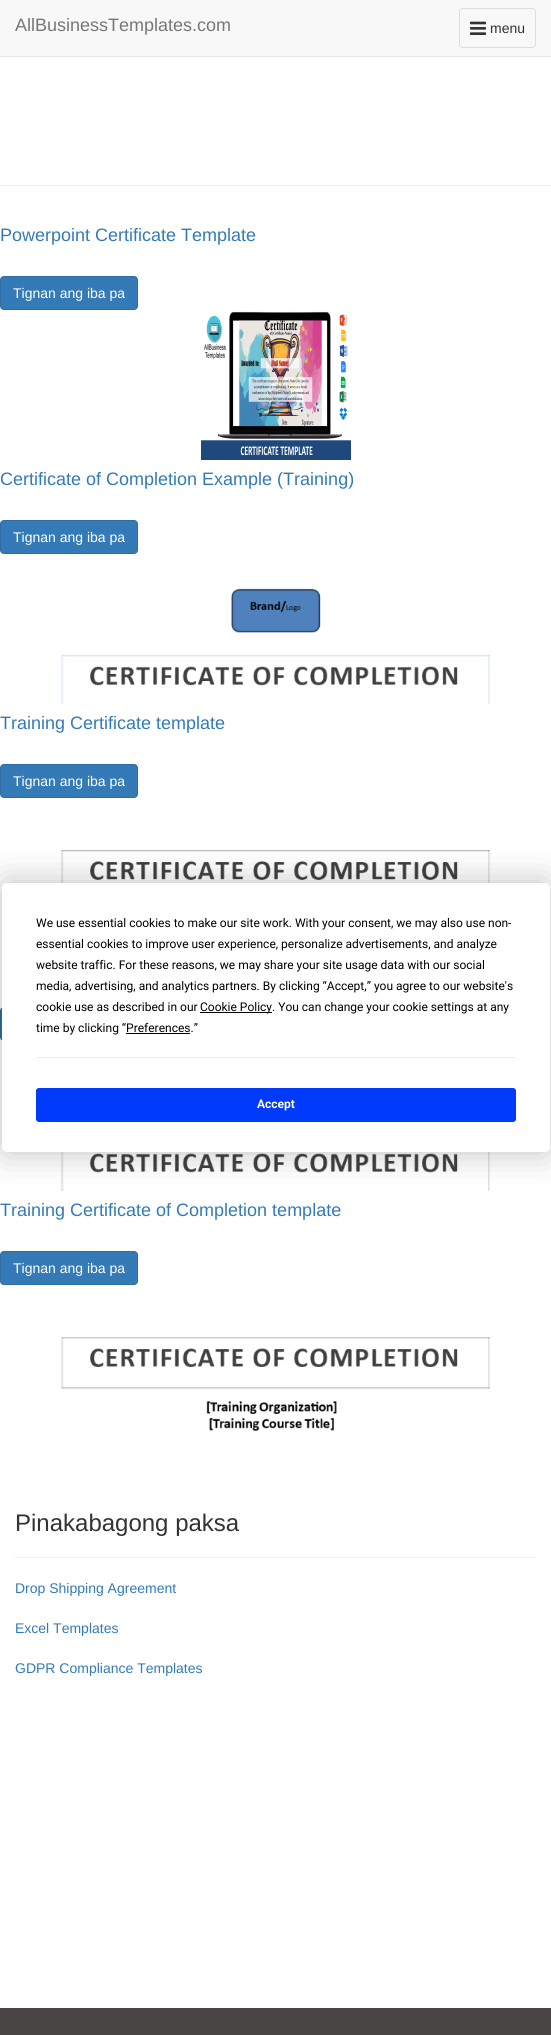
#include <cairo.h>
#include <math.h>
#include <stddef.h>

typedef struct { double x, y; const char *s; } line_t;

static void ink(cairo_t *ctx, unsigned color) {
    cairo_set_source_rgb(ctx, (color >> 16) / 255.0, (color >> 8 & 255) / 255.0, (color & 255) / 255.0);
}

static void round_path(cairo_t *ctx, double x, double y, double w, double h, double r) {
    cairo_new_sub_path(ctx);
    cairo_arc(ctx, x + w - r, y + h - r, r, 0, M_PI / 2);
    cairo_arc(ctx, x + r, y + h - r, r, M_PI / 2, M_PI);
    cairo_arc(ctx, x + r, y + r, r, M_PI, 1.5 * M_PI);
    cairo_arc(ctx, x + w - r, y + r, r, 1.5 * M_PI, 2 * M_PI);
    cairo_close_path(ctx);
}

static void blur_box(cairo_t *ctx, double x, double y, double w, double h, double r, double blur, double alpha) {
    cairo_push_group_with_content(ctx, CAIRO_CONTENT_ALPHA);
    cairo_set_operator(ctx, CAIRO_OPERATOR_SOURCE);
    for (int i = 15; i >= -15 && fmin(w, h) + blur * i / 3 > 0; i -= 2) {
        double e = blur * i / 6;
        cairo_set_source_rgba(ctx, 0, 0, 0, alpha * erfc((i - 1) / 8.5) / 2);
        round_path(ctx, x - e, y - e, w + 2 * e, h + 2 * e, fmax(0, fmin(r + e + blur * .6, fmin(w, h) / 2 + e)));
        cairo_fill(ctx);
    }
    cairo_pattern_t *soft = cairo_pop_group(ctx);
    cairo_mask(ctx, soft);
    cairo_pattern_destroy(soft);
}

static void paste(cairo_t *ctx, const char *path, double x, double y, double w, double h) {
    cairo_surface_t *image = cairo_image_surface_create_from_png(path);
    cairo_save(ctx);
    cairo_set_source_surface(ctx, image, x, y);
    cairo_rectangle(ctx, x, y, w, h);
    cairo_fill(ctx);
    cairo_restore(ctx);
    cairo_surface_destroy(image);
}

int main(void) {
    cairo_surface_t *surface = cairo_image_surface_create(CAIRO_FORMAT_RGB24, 551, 2035);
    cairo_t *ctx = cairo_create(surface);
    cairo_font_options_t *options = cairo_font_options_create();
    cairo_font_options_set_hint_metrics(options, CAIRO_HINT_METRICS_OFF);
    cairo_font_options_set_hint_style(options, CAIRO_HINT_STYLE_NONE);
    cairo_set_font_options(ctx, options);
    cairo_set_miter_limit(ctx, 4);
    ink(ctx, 0xFFFFFF);
    cairo_paint(ctx);
    ink(ctx, 0xF8F8F8);
    cairo_rectangle(ctx, 0, 0, 551, 56);
    cairo_fill(ctx);
    ink(ctx, 0xE7E7E7);
    cairo_rectangle(ctx, 0, 56, 551, 1);
    cairo_fill(ctx);
    cairo_select_font_face(ctx, "Liberation Sans", CAIRO_FONT_SLANT_NORMAL, CAIRO_FONT_WEIGHT_NORMAL);
    cairo_set_font_size(ctx, 18);
    ink(ctx, 0x777777);
    cairo_move_to(ctx, 15, 31);
    cairo_show_text(ctx, "AllBusinessTemplates.com");
    round_path(ctx, 459.5, 8.5, 76, 39, 3.5);
    ink(ctx, 0xDDDDDD);
    cairo_set_line_width(ctx, 1);
    cairo_stroke(ctx);
    paste(ctx, "media/1.png", 470, 21, 16, 14);
    cairo_set_font_size(ctx, 14);
    ink(ctx, 0x333333);
    cairo_move_to(ctx, 490, 33);
    cairo_show_text(ctx, "menu");
    ink(ctx, 0xEEEEEE);
    cairo_rectangle(ctx, 0, 185, 551, 1);
    cairo_fill(ctx);
    cairo_set_font_size(ctx, 18);
    ink(ctx, 0x337AB7);
    cairo_move_to(ctx, 0, 241);
    cairo_show_text(ctx, "Powerpoint Certificate Template");
    round_path(ctx, 0.5, 276.5, 137, 33, 3.5);
    cairo_fill_preserve(ctx);
    ink(ctx, 0x2E6DA4);
    cairo_stroke(ctx);
    cairo_set_font_size(ctx, 14);
    ink(ctx, 0xFFFFFF);
    cairo_move_to(ctx, 13, 298);
    cairo_show_text(ctx, "Tignan ang iba pa");
    paste(ctx, "media/2.png", 201, 311, 150, 149);
    cairo_set_font_size(ctx, 18);
    ink(ctx, 0x337AB7);
    cairo_move_to(ctx, 0, 485);
    cairo_show_text(ctx, "Certificate of Completion Example (Training)");
    round_path(ctx, 0.5, 520.5, 137, 33, 3.5);
    cairo_fill_preserve(ctx);
    ink(ctx, 0x2E6DA4);
    cairo_stroke(ctx);
    cairo_set_font_size(ctx, 14);
    ink(ctx, 0xFFFFFF);
    cairo_move_to(ctx, 13, 542);
    cairo_show_text(ctx, "Tignan ang iba pa");
    paste(ctx, "media/3.png", 61, 588, 429, 116);
    cairo_set_font_size(ctx, 18);
    ink(ctx, 0x337AB7);
    cairo_move_to(ctx, 0, 729);
    cairo_show_text(ctx, "Training Certificate template");
    round_path(ctx, 0.5, 764.5, 137, 33, 3.5);
    cairo_fill_preserve(ctx);
    ink(ctx, 0x2E6DA4);
    cairo_stroke(ctx);
    cairo_set_font_size(ctx, 14);
    ink(ctx, 0xFFFFFF);
    cairo_move_to(ctx, 13, 786);
    cairo_show_text(ctx, "Tignan ang iba pa");
    paste(ctx, "media/4.png", 61, 850, 430, 33);
    ink(ctx, 0x337AB7);
    round_path(ctx, 0.5, 1007.5, 137, 33, 3.5);
    cairo_fill_preserve(ctx);
    ink(ctx, 0x2E6DA4);
    cairo_stroke(ctx);
    paste(ctx, "media/5.png", 61, 1152, 429, 39);
    cairo_set_font_size(ctx, 18);
    ink(ctx, 0x337AB7);
    cairo_move_to(ctx, 0, 1216);
    cairo_show_text(ctx, "Training Certificate of Completion template");
    round_path(ctx, 0.5, 1251.5, 137, 33, 3.5);
    cairo_fill_preserve(ctx);
    ink(ctx, 0x2E6DA4);
    cairo_stroke(ctx);
    cairo_set_font_size(ctx, 14);
    ink(ctx, 0xFFFFFF);
    cairo_move_to(ctx, 13, 1273);
    cairo_show_text(ctx, "Tignan ang iba pa");
    paste(ctx, "media/6.png", 61, 1337, 430, 95);
    cairo_set_font_size(ctx, 24);
    ink(ctx, 0x333333);
    cairo_move_to(ctx, 15, 1531);
    cairo_show_text(ctx, "Pinakabagong paksa");
    ink(ctx, 0xEEEEEE);
    cairo_rectangle(ctx, 15, 1557, 521, 1);
    cairo_fill(ctx);
    cairo_set_font_size(ctx, 14);
    ink(ctx, 0x337AB7);
    {
        static const line_t items[] = {
            {15, 1593, "Drop Shipping Agreement"},
            {15, 1633, "Excel Templates"},
            {15, 1673, "GDPR Compliance Templates"},
        };
        for (size_t i = 0; i < sizeof items / sizeof *items; i++) {
            cairo_move_to(ctx, items[i].x, items[i].y);
            cairo_show_text(ctx, items[i].s);
        }
    }
    ink(ctx, 0x000000);
    blur_box(ctx, 2, 883, 548, 269, 5, 17.5, 0.25);
    ink(ctx, 0xFFFFFF);
    round_path(ctx, 2, 883, 548, 269, 5);
    cairo_fill(ctx);
    cairo_select_font_face(ctx, "Roboto", CAIRO_FONT_SLANT_NORMAL, CAIRO_FONT_WEIGHT_NORMAL);
    cairo_set_font_size(ctx, 12);
    ink(ctx, 0x000000);
    {
        static const line_t items[] = {
            {36, 927, "We use essential cookies to make our site work. With your consent, we may also use non-"},
            {36, 948, "essential cookies to improve user experience, personalize advertisements, and analyze"},
            {36, 969, "website traffic. For these reasons, we may share your site usage data with our social"},
            {36, 990, "media, advertising, and analytics partners. By clicking “Accept,” you agree to our website's"},
            {36, 1011, "cookie use as described in our"},
        };
        for (size_t i = 0; i < sizeof items / sizeof *items; i++) {
            cairo_move_to(ctx, items[i].x, items[i].y);
            cairo_show_text(ctx, items[i].s);
        }
    }
    cairo_rectangle(ctx, 200, 1012, 72, 1);
    cairo_fill(ctx);
    cairo_move_to(ctx, 200, 1011);
    cairo_show_text(ctx, "Cookie Policy. You can change your cookie settings at any");
    cairo_move_to(ctx, 36, 1032);
    cairo_show_text(ctx, "time by clicking “Preferences.”");
    cairo_rectangle(ctx, 126, 1033, 64, 1);
    cairo_fill(ctx);
    ink(ctx, 0xEDEDEF);
    cairo_rectangle(ctx, 36, 1057, 480, 1);
    cairo_fill(ctx);
    ink(ctx, 0x003AFA);
    round_path(ctx, 36.5, 1088.5, 479, 33, 2.5);
    cairo_fill_preserve(ctx);
    cairo_stroke(ctx);
    cairo_select_font_face(ctx, "Roboto", CAIRO_FONT_SLANT_NORMAL, CAIRO_FONT_WEIGHT_BOLD);
    ink(ctx, 0xFFFFFF);
    cairo_move_to(ctx, 257, 1108);
    cairo_show_text(ctx, "Accept");
    ink(ctx, 0x494545);
    cairo_rectangle(ctx, 0, 2008, 551, 27);
    cairo_fill(ctx);
    cairo_surface_write_to_png(surface, "image.png");
    cairo_font_options_destroy(options);
    cairo_destroy(ctx);
    cairo_surface_destroy(surface);
    return 0;
}
